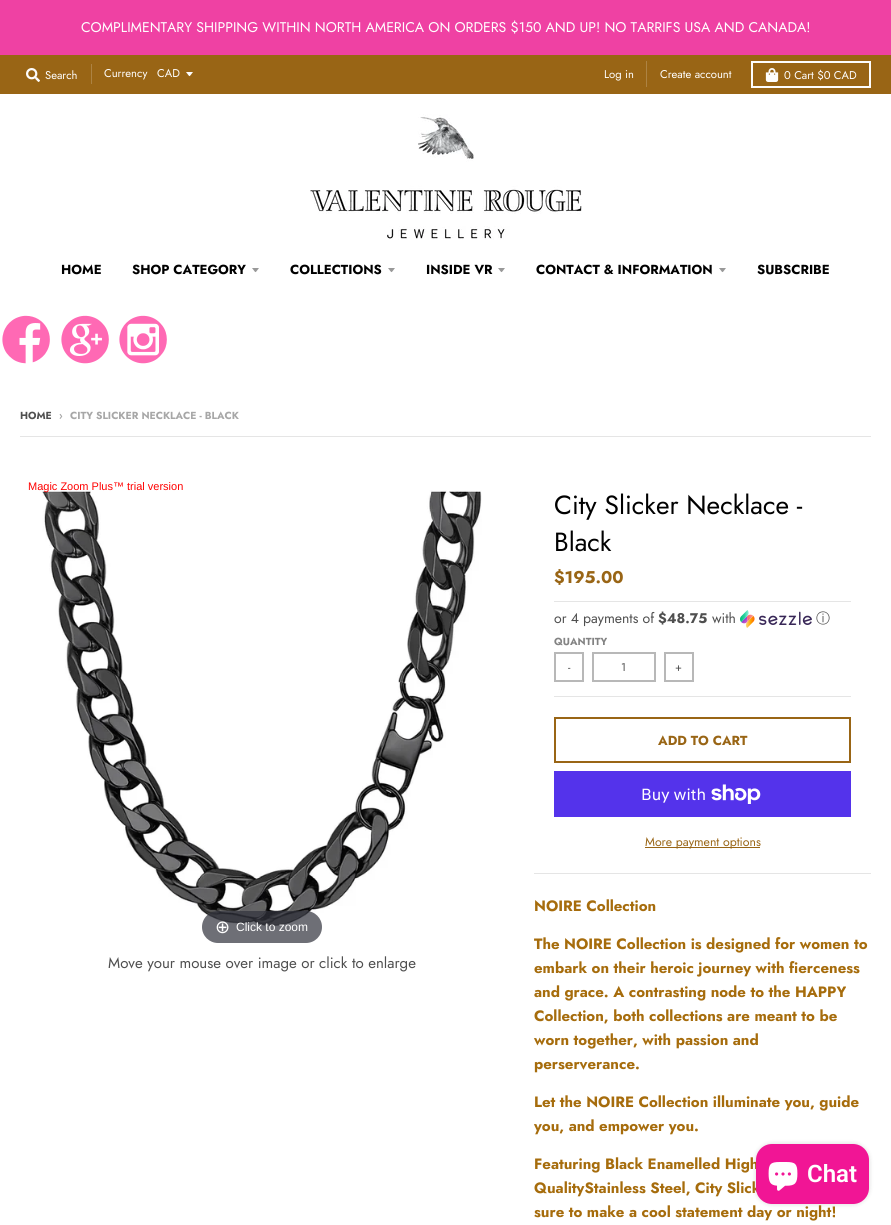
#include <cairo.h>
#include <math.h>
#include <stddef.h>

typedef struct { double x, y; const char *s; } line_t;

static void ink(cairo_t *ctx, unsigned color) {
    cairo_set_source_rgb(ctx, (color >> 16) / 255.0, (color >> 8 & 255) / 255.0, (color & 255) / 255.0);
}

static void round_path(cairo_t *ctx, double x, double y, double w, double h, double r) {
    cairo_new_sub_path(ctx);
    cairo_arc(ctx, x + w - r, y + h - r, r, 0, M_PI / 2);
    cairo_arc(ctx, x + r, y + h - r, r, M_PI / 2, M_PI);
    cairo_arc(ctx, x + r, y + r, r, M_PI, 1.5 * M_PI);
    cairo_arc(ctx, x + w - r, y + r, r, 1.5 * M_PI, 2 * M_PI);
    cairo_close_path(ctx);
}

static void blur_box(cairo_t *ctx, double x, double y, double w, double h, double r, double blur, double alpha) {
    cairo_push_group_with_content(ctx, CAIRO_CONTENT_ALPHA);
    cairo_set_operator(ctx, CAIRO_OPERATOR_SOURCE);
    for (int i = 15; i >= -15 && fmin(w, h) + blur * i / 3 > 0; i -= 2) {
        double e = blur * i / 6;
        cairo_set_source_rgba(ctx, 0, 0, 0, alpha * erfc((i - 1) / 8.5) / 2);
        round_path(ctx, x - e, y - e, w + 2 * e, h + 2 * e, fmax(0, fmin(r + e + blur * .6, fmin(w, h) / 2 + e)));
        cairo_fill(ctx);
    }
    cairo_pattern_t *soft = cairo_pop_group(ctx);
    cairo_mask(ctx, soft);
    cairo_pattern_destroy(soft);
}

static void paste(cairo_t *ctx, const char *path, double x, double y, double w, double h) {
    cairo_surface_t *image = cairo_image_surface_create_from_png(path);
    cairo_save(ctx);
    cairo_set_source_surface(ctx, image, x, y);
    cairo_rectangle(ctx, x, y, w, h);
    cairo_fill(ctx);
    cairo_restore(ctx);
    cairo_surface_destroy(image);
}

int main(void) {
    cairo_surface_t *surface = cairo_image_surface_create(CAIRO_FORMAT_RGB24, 891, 1225);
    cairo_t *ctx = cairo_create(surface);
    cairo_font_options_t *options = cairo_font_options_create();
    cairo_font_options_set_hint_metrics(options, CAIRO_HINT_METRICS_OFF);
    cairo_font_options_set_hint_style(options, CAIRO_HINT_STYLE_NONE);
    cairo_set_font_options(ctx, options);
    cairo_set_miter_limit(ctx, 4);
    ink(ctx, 0xFFFFFF);
    cairo_paint(ctx);
    ink(ctx, 0xEF41A3);
    cairo_rectangle(ctx, 0, 0, 891, 55);
    cairo_fill(ctx);
    cairo_select_font_face(ctx, "Jost", CAIRO_FONT_SLANT_NORMAL, CAIRO_FONT_WEIGHT_NORMAL);
    cairo_set_font_size(ctx, 14.05);
    ink(ctx, 0xFFFFFF);
    cairo_move_to(ctx, 81, 32);
    cairo_show_text(ctx, "COMPLIMENTARY SHIPPING WITHIN NORTH AMERICA ON ORDERS $150 AND UP! NO TARRIFS USA AND CANADA!");
    ink(ctx, 0x996515);
    cairo_rectangle(ctx, 0, 55, 891, 39);
    cairo_fill(ctx);
    paste(ctx, "media/1.png", 26, 68, 14, 14);
    cairo_set_font_size(ctx, 11.25);
    ink(ctx, 0xFFFFFF);
    cairo_move_to(ctx, 45, 79);
    cairo_show_text(ctx, "Search");
    ink(ctx, 0xAD8343);
    cairo_rectangle(ctx, 91, 64, 1, 20);
    cairo_fill(ctx);
    ink(ctx, 0xFFFFFF);
    cairo_move_to(ctx, 104, 77);
    cairo_show_text(ctx, "Currency");
    ink(ctx, 0xFDFDFD);
    cairo_new_path(ctx);
    cairo_move_to(ctx, 186, 72);
    cairo_curve_to(ctx, 190.5, 77.5, 188.5, 77.5, 193, 72);
    cairo_close_path(ctx);
    cairo_fill(ctx);
    ink(ctx, 0xFFFFFF);
    cairo_move_to(ctx, 157, 77);
    cairo_show_text(ctx, "CAD");
    ink(ctx, 0xAD8343);
    cairo_rectangle(ctx, 646, 61, 1, 26);
    cairo_fill(ctx);
    ink(ctx, 0xFFFFFF);
    cairo_move_to(ctx, 604, 78);
    cairo_show_text(ctx, "Log in");
    cairo_move_to(ctx, 660, 78);
    cairo_show_text(ctx, "Create account");
    cairo_rectangle(ctx, 752, 62, 118, 25);
    ink(ctx, 0xFDFDFD);
    cairo_stroke(ctx);
    paste(ctx, "media/2.png", 765, 68, 14, 14);
    ink(ctx, 0xFFFFFF);
    cairo_move_to(ctx, 784, 79);
    cairo_show_text(ctx, "0 Cart $0 CAD");
    paste(ctx, "media/3.png", 310, 114, 272, 126);
    cairo_select_font_face(ctx, "Jost", CAIRO_FONT_SLANT_NORMAL, CAIRO_FONT_WEIGHT_BOLD);
    cairo_set_font_size(ctx, 13.1);
    ink(ctx, 0x000000);
    cairo_move_to(ctx, 61, 274);
    cairo_show_text(ctx, "HOME");
    cairo_move_to(ctx, 132, 274);
    cairo_show_text(ctx, "SHOP CATEGORY");
    ink(ctx, 0x999999);
    cairo_new_path(ctx);
    cairo_move_to(ctx, 252, 268);
    cairo_curve_to(ctx, 256.5, 273.5, 254.5, 273.5, 259, 268);
    cairo_close_path(ctx);
    cairo_fill(ctx);
    ink(ctx, 0x000000);
    cairo_move_to(ctx, 290, 274);
    cairo_show_text(ctx, "COLLECTIONS");
    ink(ctx, 0x999999);
    cairo_new_path(ctx);
    cairo_move_to(ctx, 388, 268);
    cairo_curve_to(ctx, 392.5, 273.5, 390.5, 273.5, 395, 268);
    cairo_close_path(ctx);
    cairo_fill(ctx);
    ink(ctx, 0x000000);
    cairo_move_to(ctx, 426, 274);
    cairo_show_text(ctx, "INSIDE VR");
    ink(ctx, 0x999999);
    cairo_new_path(ctx);
    cairo_move_to(ctx, 498, 268);
    cairo_curve_to(ctx, 502.5, 273.5, 500.5, 273.5, 505, 268);
    cairo_close_path(ctx);
    cairo_fill(ctx);
    ink(ctx, 0x000000);
    cairo_move_to(ctx, 536, 274);
    cairo_show_text(ctx, "CONTACT & INFORMATION");
    ink(ctx, 0x999999);
    cairo_new_path(ctx);
    cairo_move_to(ctx, 719, 268);
    cairo_curve_to(ctx, 723.5, 273.5, 721.5, 273.5, 726, 268);
    cairo_close_path(ctx);
    cairo_fill(ctx);
    ink(ctx, 0x000000);
    cairo_move_to(ctx, 757, 274);
    cairo_show_text(ctx, "SUBSCRIBE");
    paste(ctx, "media/4.png", 2, 315, 48, 49);
    paste(ctx, "media/5.png", 61, 315, 48, 49);
    paste(ctx, "media/6.png", 119, 315, 48, 49);
    cairo_set_font_size(ctx, 10.25);
    ink(ctx, 0x4F4F4F);
    cairo_move_to(ctx, 20, 419);
    cairo_show_text(ctx, "HOME");
    ink(ctx, 0xA7A7A7);
    cairo_move_to(ctx, 59, 419);
    cairo_show_text(ctx, "›");
    cairo_move_to(ctx, 70, 419);
    cairo_show_text(ctx, "CITY SLICKER NECKLACE - BLACK");
    ink(ctx, 0xE5E5E5);
    cairo_rectangle(ctx, 20, 436, 851, 1);
    cairo_fill(ctx);
    paste(ctx, "media/7.png", 42, 490, 440, 437);
    cairo_select_font_face(ctx, "Liberation Sans", CAIRO_FONT_SLANT_NORMAL, CAIRO_FONT_WEIGHT_NORMAL);
    cairo_set_font_size(ctx, 11);
    ink(ctx, 0xFF0000);
    cairo_move_to(ctx, 28, 490);
    cairo_show_text(ctx, "Magic Zoom Plus™ trial version");
    cairo_set_source_rgba(ctx, 0.192, 0.2, 0.239, 0.7);
    round_path(ctx, 202, 911, 120, 32, 16);
    cairo_fill(ctx);
    cairo_select_font_face(ctx, "DejaVu Sans", CAIRO_FONT_SLANT_NORMAL, CAIRO_FONT_WEIGHT_NORMAL);
    cairo_set_font_size(ctx, 18);
    ink(ctx, 0xFFFFFF);
    cairo_move_to(ctx, 215, 933);
    cairo_show_text(ctx, "⊕");
    cairo_select_font_face(ctx, "Liberation Sans", CAIRO_FONT_SLANT_NORMAL, CAIRO_FONT_WEIGHT_NORMAL);
    cairo_set_font_size(ctx, 12);
    cairo_move_to(ctx, 236, 931);
    cairo_show_text(ctx, "Click to zoom");
    cairo_select_font_face(ctx, "Jost", CAIRO_FONT_SLANT_NORMAL, CAIRO_FONT_WEIGHT_NORMAL);
    cairo_set_font_size(ctx, 15);
    ink(ctx, 0x4F4F4F);
    cairo_move_to(ctx, 108, 968);
    cairo_show_text(ctx, "Move your mouse over image or click to enlarge");
    ink(ctx, 0xE5E5E5);
    cairo_rectangle(ctx, 534, 873, 337, 1);
    cairo_fill(ctx);
    cairo_set_font_size(ctx, 26.25);
    ink(ctx, 0x000000);
    cairo_move_to(ctx, 554, 514);
    cairo_show_text(ctx, "City Slicker Necklace -");
    cairo_move_to(ctx, 554, 551);
    cairo_show_text(ctx, "Black");
    ink(ctx, 0xE5E5E5);
    cairo_rectangle(ctx, 554, 601, 297, 1);
    cairo_fill(ctx);
    cairo_select_font_face(ctx, "Jost", CAIRO_FONT_SLANT_NORMAL, CAIRO_FONT_WEIGHT_BOLD);
    cairo_set_font_size(ctx, 17);
    ink(ctx, 0x996515);
    cairo_move_to(ctx, 554, 583);
    cairo_show_text(ctx, "$195.00");
    cairo_select_font_face(ctx, "Jost", CAIRO_FONT_SLANT_NORMAL, CAIRO_FONT_WEIGHT_NORMAL);
    cairo_set_font_size(ctx, 14);
    ink(ctx, 0x4F4F4F);
    cairo_move_to(ctx, 554, 623);
    cairo_show_text(ctx, "or 4 payments of");
    cairo_select_font_face(ctx, "Jost", CAIRO_FONT_SLANT_NORMAL, CAIRO_FONT_WEIGHT_BOLD);
    cairo_move_to(ctx, 658, 623);
    cairo_show_text(ctx, "$48.75");
    cairo_select_font_face(ctx, "Jost", CAIRO_FONT_SLANT_NORMAL, CAIRO_FONT_WEIGHT_NORMAL);
    cairo_move_to(ctx, 712, 623);
    cairo_show_text(ctx, "with");
    paste(ctx, "media/8.png", 740, 610, 72, 18);
    cairo_select_font_face(ctx, "WenQuanYi Zen Hei Medium", CAIRO_FONT_SLANT_NORMAL, CAIRO_FONT_WEIGHT_NORMAL);
    cairo_move_to(ctx, 816, 623);
    cairo_show_text(ctx, "ⓘ");
    ink(ctx, 0xE5E5E5);
    cairo_rectangle(ctx, 554, 696, 297, 1);
    cairo_fill(ctx);
    cairo_select_font_face(ctx, "Jost", CAIRO_FONT_SLANT_NORMAL, CAIRO_FONT_WEIGHT_BOLD);
    cairo_set_font_size(ctx, 10.25);
    ink(ctx, 0x838383);
    cairo_move_to(ctx, 554, 645);
    cairo_show_text(ctx, "QUANTITY");
    cairo_rectangle(ctx, 555, 653, 28, 28);
    ink(ctx, 0xB8B8B8);
    cairo_stroke(ctx);
    cairo_select_font_face(ctx, "Jost", CAIRO_FONT_SLANT_NORMAL, CAIRO_FONT_WEIGHT_NORMAL);
    cairo_set_font_size(ctx, 11.25);
    ink(ctx, 0x4F4F4F);
    cairo_move_to(ctx, 568, 671);
    cairo_show_text(ctx, "-");
    cairo_rectangle(ctx, 593, 653, 62, 28);
    ink(ctx, 0xB8B8B8);
    cairo_stroke(ctx);
    ink(ctx, 0x4F4F4F);
    cairo_move_to(ctx, 621, 671);
    cairo_show_text(ctx, "1");
    cairo_rectangle(ctx, 665, 653, 28, 28);
    ink(ctx, 0xB8B8B8);
    cairo_stroke(ctx);
    ink(ctx, 0x4F4F4F);
    cairo_move_to(ctx, 675, 671);
    cairo_show_text(ctx, "+");
    cairo_rectangle(ctx, 555, 718, 295, 44);
    ink(ctx, 0x996515);
    cairo_stroke(ctx);
    cairo_select_font_face(ctx, "Jost", CAIRO_FONT_SLANT_NORMAL, CAIRO_FONT_WEIGHT_BOLD);
    cairo_set_font_size(ctx, 13.1);
    cairo_move_to(ctx, 658, 745);
    cairo_show_text(ctx, "ADD TO CART");
    ink(ctx, 0x5433EB);
    cairo_rectangle(ctx, 554, 771, 297, 46);
    cairo_fill(ctx);
    cairo_select_font_face(ctx, "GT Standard", CAIRO_FONT_SLANT_NORMAL, CAIRO_FONT_WEIGHT_NORMAL);
    cairo_set_font_size(ctx, 16);
    ink(ctx, 0xFFFFFF);
    cairo_move_to(ctx, 641, 800);
    cairo_show_text(ctx, "Buy with");
    paste(ctx, "media/9.png", 711, 784, 50, 20);
    ink(ctx, 0x996515);
    cairo_rectangle(ctx, 645, 847, 115, 1);
    cairo_fill(ctx);
    cairo_select_font_face(ctx, "Jost", CAIRO_FONT_SLANT_NORMAL, CAIRO_FONT_WEIGHT_NORMAL);
    cairo_set_font_size(ctx, 12.25);
    cairo_move_to(ctx, 645, 846);
    cairo_show_text(ctx, "More payment options");
    cairo_select_font_face(ctx, "Jost", CAIRO_FONT_SLANT_NORMAL, CAIRO_FONT_WEIGHT_BOLD);
    cairo_set_font_size(ctx, 15);
    ink(ctx, 0xA66C0C);
    {
        static const line_t items[] = {
            {534, 911, "NOIRE Collection"},
            {534, 949, "The NOIRE Collection is designed for women to"},
            {534, 973, "embark on their heroic journey with fierceness"},
            {534, 997, "and grace. A contrasting node to the HAPPY"},
            {534, 1021, "Collection, both collections are meant to be"},
            {534, 1045, "worn together, with passion and"},
            {534, 1069, "perserverance."},
            {534, 1107, "Let the NOIRE Collection illuminate you, guide"},
            {534, 1131, "you, and empower you."},
            {534, 1169, "Featuring Black Enamelled High"},
            {534, 1193, "QualityStainless Steel, City Slick"},
            {534, 1217, "sure to make a cool statement day or night!"},
        };
        for (size_t i = 0; i < sizeof items / sizeof *items; i++) {
            cairo_move_to(ctx, items[i].x, items[i].y);
            cairo_show_text(ctx, items[i].s);
        }
    }
    ink(ctx, 0x000000);
    blur_box(ctx, 756, 1144, 113, 60, 16, 2.5, 0.15);
    ink(ctx, 0xF11595);
    round_path(ctx, 756, 1144, 113, 60, 16);
    cairo_fill(ctx);
    paste(ctx, "media/10.png", 768, 1162, 30, 29);
    cairo_select_font_face(ctx, "Roboto SemiBold", CAIRO_FONT_SLANT_NORMAL, CAIRO_FONT_WEIGHT_NORMAL);
    cairo_set_font_size(ctx, 24);
    ink(ctx, 0xFFFFFF);
    cairo_move_to(ctx, 807, 1182);
    cairo_show_text(ctx, "Chat");
    cairo_surface_write_to_png(surface, "image.png");
    cairo_font_options_destroy(options);
    cairo_destroy(ctx);
    cairo_surface_destroy(surface);
    return 0;
}
